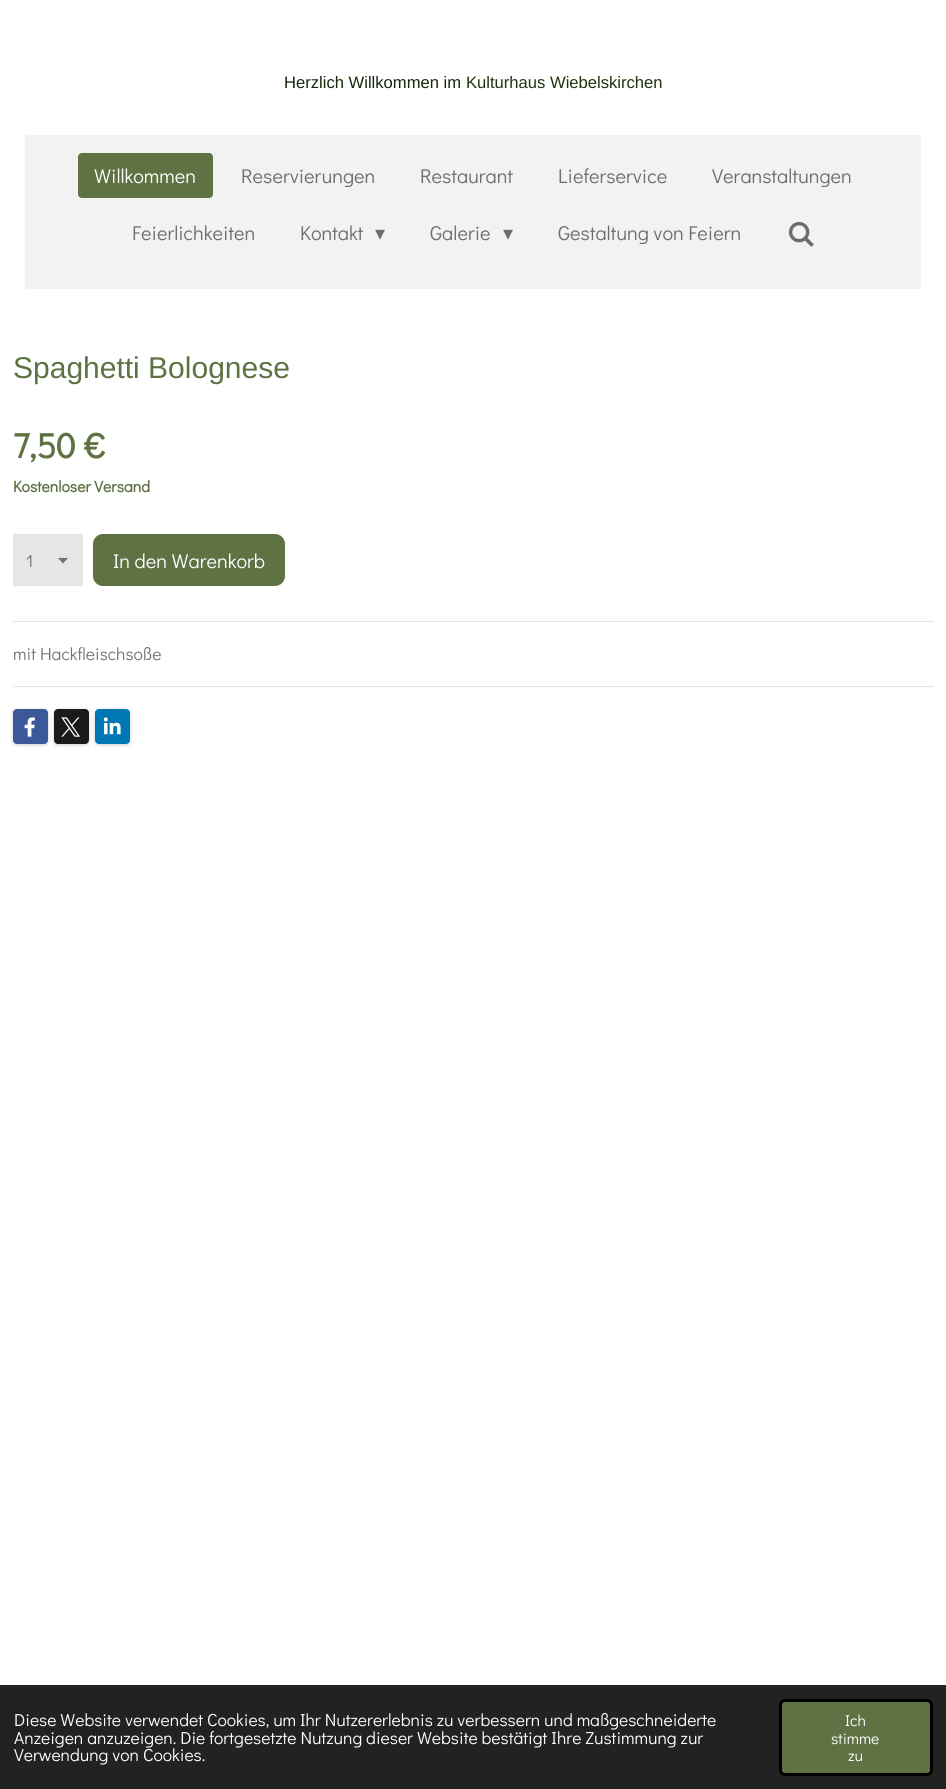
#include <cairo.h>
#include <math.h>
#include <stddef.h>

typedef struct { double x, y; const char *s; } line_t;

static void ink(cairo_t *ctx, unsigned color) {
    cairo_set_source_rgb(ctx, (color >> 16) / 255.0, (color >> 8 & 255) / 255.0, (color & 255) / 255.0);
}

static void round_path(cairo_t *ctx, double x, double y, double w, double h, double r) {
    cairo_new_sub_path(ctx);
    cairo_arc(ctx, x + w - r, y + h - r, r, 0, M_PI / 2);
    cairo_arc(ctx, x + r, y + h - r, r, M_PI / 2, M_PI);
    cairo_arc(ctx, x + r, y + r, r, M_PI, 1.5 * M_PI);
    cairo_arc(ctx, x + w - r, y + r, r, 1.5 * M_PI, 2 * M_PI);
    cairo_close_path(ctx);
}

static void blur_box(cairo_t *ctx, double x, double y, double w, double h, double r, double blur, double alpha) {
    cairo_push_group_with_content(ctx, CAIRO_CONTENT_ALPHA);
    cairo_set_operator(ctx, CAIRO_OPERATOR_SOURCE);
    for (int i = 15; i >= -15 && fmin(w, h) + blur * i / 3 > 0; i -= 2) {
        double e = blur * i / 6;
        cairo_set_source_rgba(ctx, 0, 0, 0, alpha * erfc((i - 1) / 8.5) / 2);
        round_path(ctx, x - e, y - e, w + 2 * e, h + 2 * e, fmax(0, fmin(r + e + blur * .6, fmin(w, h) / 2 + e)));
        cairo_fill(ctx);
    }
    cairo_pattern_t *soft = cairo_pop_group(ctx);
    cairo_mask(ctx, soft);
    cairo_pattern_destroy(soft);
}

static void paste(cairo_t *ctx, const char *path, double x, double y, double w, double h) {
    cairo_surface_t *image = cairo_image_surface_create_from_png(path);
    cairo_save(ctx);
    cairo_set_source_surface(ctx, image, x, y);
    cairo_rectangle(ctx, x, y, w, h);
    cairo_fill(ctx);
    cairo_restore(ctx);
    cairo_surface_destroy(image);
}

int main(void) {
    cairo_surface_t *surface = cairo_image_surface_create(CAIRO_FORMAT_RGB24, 946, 1789);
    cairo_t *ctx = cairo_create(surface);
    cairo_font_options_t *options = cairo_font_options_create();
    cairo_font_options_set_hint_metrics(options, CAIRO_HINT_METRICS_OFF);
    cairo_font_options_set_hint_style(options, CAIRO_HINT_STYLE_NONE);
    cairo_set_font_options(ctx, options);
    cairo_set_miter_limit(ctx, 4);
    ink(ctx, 0xFFFFFF);
    cairo_paint(ctx);
    cairo_select_font_face(ctx, "Arimo", CAIRO_FONT_SLANT_NORMAL, CAIRO_FONT_WEIGHT_NORMAL);
    cairo_set_font_size(ctx, 16.6);
    ink(ctx, 0x17270C);
    cairo_move_to(ctx, 284, 88);
    cairo_show_text(ctx, "Herzlich Willkommen im");
    ink(ctx, 0x1E340E);
    cairo_move_to(ctx, 466, 88);
    cairo_show_text(ctx, "Kulturhaus Wiebelskirchen");
    ink(ctx, 0xF2F2F2);
    cairo_rectangle(ctx, 25, 135, 896, 154);
    cairo_fill(ctx);
    ink(ctx, 0x5E7244);
    round_path(ctx, 78, 153, 135, 45, 4);
    cairo_fill(ctx);
    cairo_select_font_face(ctx, "Didact Gothic", CAIRO_FONT_SLANT_NORMAL, CAIRO_FONT_WEIGHT_NORMAL);
    cairo_set_font_size(ctx, 20);
    ink(ctx, 0xFFFFFF);
    cairo_move_to(ctx, 94, 183);
    cairo_show_text(ctx, "Willkommen");
    ink(ctx, 0x6D6D6D);
    {
        static const line_t items[] = {
            {241, 183, "Reservierungen"},
            {420, 183, "Restaurant"},
            {558, 183, "Lieferservice"},
            {712, 183, "Veranstaltungen"},
            {132, 240, "Feierlichkeiten"},
            {300, 240, "Kontakt"},
        };
        for (size_t i = 0; i < sizeof items / sizeof *items; i++) {
            cairo_move_to(ctx, items[i].x, items[i].y);
            cairo_show_text(ctx, items[i].s);
        }
    }
    cairo_select_font_face(ctx, "DejaVu Sans", CAIRO_FONT_SLANT_NORMAL, CAIRO_FONT_WEIGHT_NORMAL);
    cairo_move_to(ctx, 375, 240);
    cairo_show_text(ctx, "▾");
    cairo_select_font_face(ctx, "Didact Gothic", CAIRO_FONT_SLANT_NORMAL, CAIRO_FONT_WEIGHT_NORMAL);
    cairo_move_to(ctx, 430, 240);
    cairo_show_text(ctx, "Galerie");
    cairo_select_font_face(ctx, "DejaVu Sans", CAIRO_FONT_SLANT_NORMAL, CAIRO_FONT_WEIGHT_NORMAL);
    cairo_move_to(ctx, 503, 240);
    cairo_show_text(ctx, "▾");
    cairo_select_font_face(ctx, "Didact Gothic", CAIRO_FONT_SLANT_NORMAL, CAIRO_FONT_WEIGHT_NORMAL);
    cairo_move_to(ctx, 558, 240);
    cairo_show_text(ctx, "Gestaltung von Feiern");
    paste(ctx, "media/1.png", 788, 221, 26, 26);
    cairo_select_font_face(ctx, "Arimo", CAIRO_FONT_SLANT_NORMAL, CAIRO_FONT_WEIGHT_NORMAL);
    cairo_set_font_size(ctx, 30);
    ink(ctx, 0x5E7244);
    cairo_move_to(ctx, 13, 378);
    cairo_show_text(ctx, "Spaghetti Bolognese");
    cairo_select_font_face(ctx, "Didact Gothic", CAIRO_FONT_SLANT_NORMAL, CAIRO_FONT_WEIGHT_BOLD);
    cairo_set_font_size(ctx, 35);
    cairo_move_to(ctx, 13, 458);
    cairo_show_text(ctx, "7,50 €");
    cairo_set_font_size(ctx, 15.75);
    cairo_move_to(ctx, 13, 492);
    cairo_show_text(ctx, "Kostenloser Versand");
    ink(ctx, 0xE6E6E6);
    cairo_rectangle(ctx, 13, 534, 70, 52);
    cairo_fill(ctx);
    cairo_save(ctx);
    cairo_rectangle(ctx, 58, 558, 11, 6);
    cairo_clip(ctx);
    ink(ctx, 0x737373);
    cairo_new_path(ctx);
    cairo_move_to(ctx, 63, 563.5);
    cairo_line_to(ctx, 57.5, 557.5);
    cairo_line_to(ctx, 68.5, 557.5);
    cairo_close_path(ctx);
    cairo_fill(ctx);
    cairo_restore(ctx);
    cairo_select_font_face(ctx, "Didact Gothic", CAIRO_FONT_SLANT_NORMAL, CAIRO_FONT_WEIGHT_NORMAL);
    cairo_set_font_size(ctx, 17.5);
    ink(ctx, 0x737373);
    cairo_move_to(ctx, 26, 567);
    cairo_show_text(ctx, "1");
    ink(ctx, 0x5E7244);
    round_path(ctx, 93, 534, 192, 52, 10);
    cairo_fill(ctx);
    cairo_set_font_size(ctx, 20);
    ink(ctx, 0xFFFFFF);
    cairo_move_to(ctx, 113, 568);
    cairo_show_text(ctx, "In den Warenkorb");
    ink(ctx, 0xE3E3E3);
    cairo_rectangle(ctx, 13, 621, 921, 1);
    cairo_fill(ctx);
    cairo_set_font_size(ctx, 17.5);
    ink(ctx, 0x737373);
    cairo_move_to(ctx, 13, 660);
    cairo_show_text(ctx, "mit Hackfleischsoße");
    ink(ctx, 0xE3E3E3);
    cairo_rectangle(ctx, 13, 686, 921, 1);
    cairo_fill(ctx);
    ink(ctx, 0x000000);
    blur_box(ctx, 13, 710, 35, 35, 4, 2, 0.2);
    ink(ctx, 0x3B5998);
    round_path(ctx, 13, 709, 35, 35, 4);
    cairo_fill(ctx);
    paste(ctx, "media/2.png", 24, 717, 11, 20);
    ink(ctx, 0x000000);
    blur_box(ctx, 54, 710, 35, 35, 4, 2, 0.2);
    ink(ctx, 0x1A1A1A);
    round_path(ctx, 54, 709, 35, 35, 4);
    cairo_fill(ctx);
    paste(ctx, "media/3.png", 61, 717, 19, 20);
    ink(ctx, 0x000000);
    blur_box(ctx, 95, 710, 35, 35, 4, 2, 0.2);
    ink(ctx, 0x0077B5);
    round_path(ctx, 95, 709, 35, 35, 4);
    cairo_fill(ctx);
    paste(ctx, "media/4.png", 103, 717, 18, 18);
    ink(ctx, 0x222222);
    cairo_rectangle(ctx, 0, 1685, 946, 104);
    cairo_fill(ctx);
    ink(ctx, 0xFFFFFF);
    {
        static const line_t items[] = {
            {14, 1726, "Diese Website verwendet Cookies, um Ihr Nutzererlebnis zu verbessern und maßgeschneiderte"},
            {14, 1744, "Anzeigen anzuzeigen. Die fortgesetzte Nutzung dieser Website bestätigt Ihre Zustimmung zur"},
            {14, 1761, "Verwendung von Cookies."},
        };
        for (size_t i = 0; i < sizeof items / sizeof *items; i++) {
            cairo_move_to(ctx, items[i].x, items[i].y);
            cairo_show_text(ctx, items[i].s);
        }
    }
    ink(ctx, 0x5E7244);
    round_path(ctx, 780.5, 1700.5, 151, 74, 4.5);
    cairo_fill_preserve(ctx);
    ink(ctx, 0x000000);
    cairo_set_line_width(ctx, 3);
    cairo_stroke(ctx);
    cairo_set_font_size(ctx, 15.75);
    ink(ctx, 0xFFFFFF);
    {
        static const line_t items[] = {
            {845, 1726, "Ich"},
            {831, 1744, "stimme"},
            {848, 1761, "zu"},
        };
        for (size_t i = 0; i < sizeof items / sizeof *items; i++) {
            cairo_move_to(ctx, items[i].x, items[i].y);
            cairo_show_text(ctx, items[i].s);
        }
    }
    cairo_surface_write_to_png(surface, "image.png");
    cairo_font_options_destroy(options);
    cairo_destroy(ctx);
    cairo_surface_destroy(surface);
    return 0;
}
